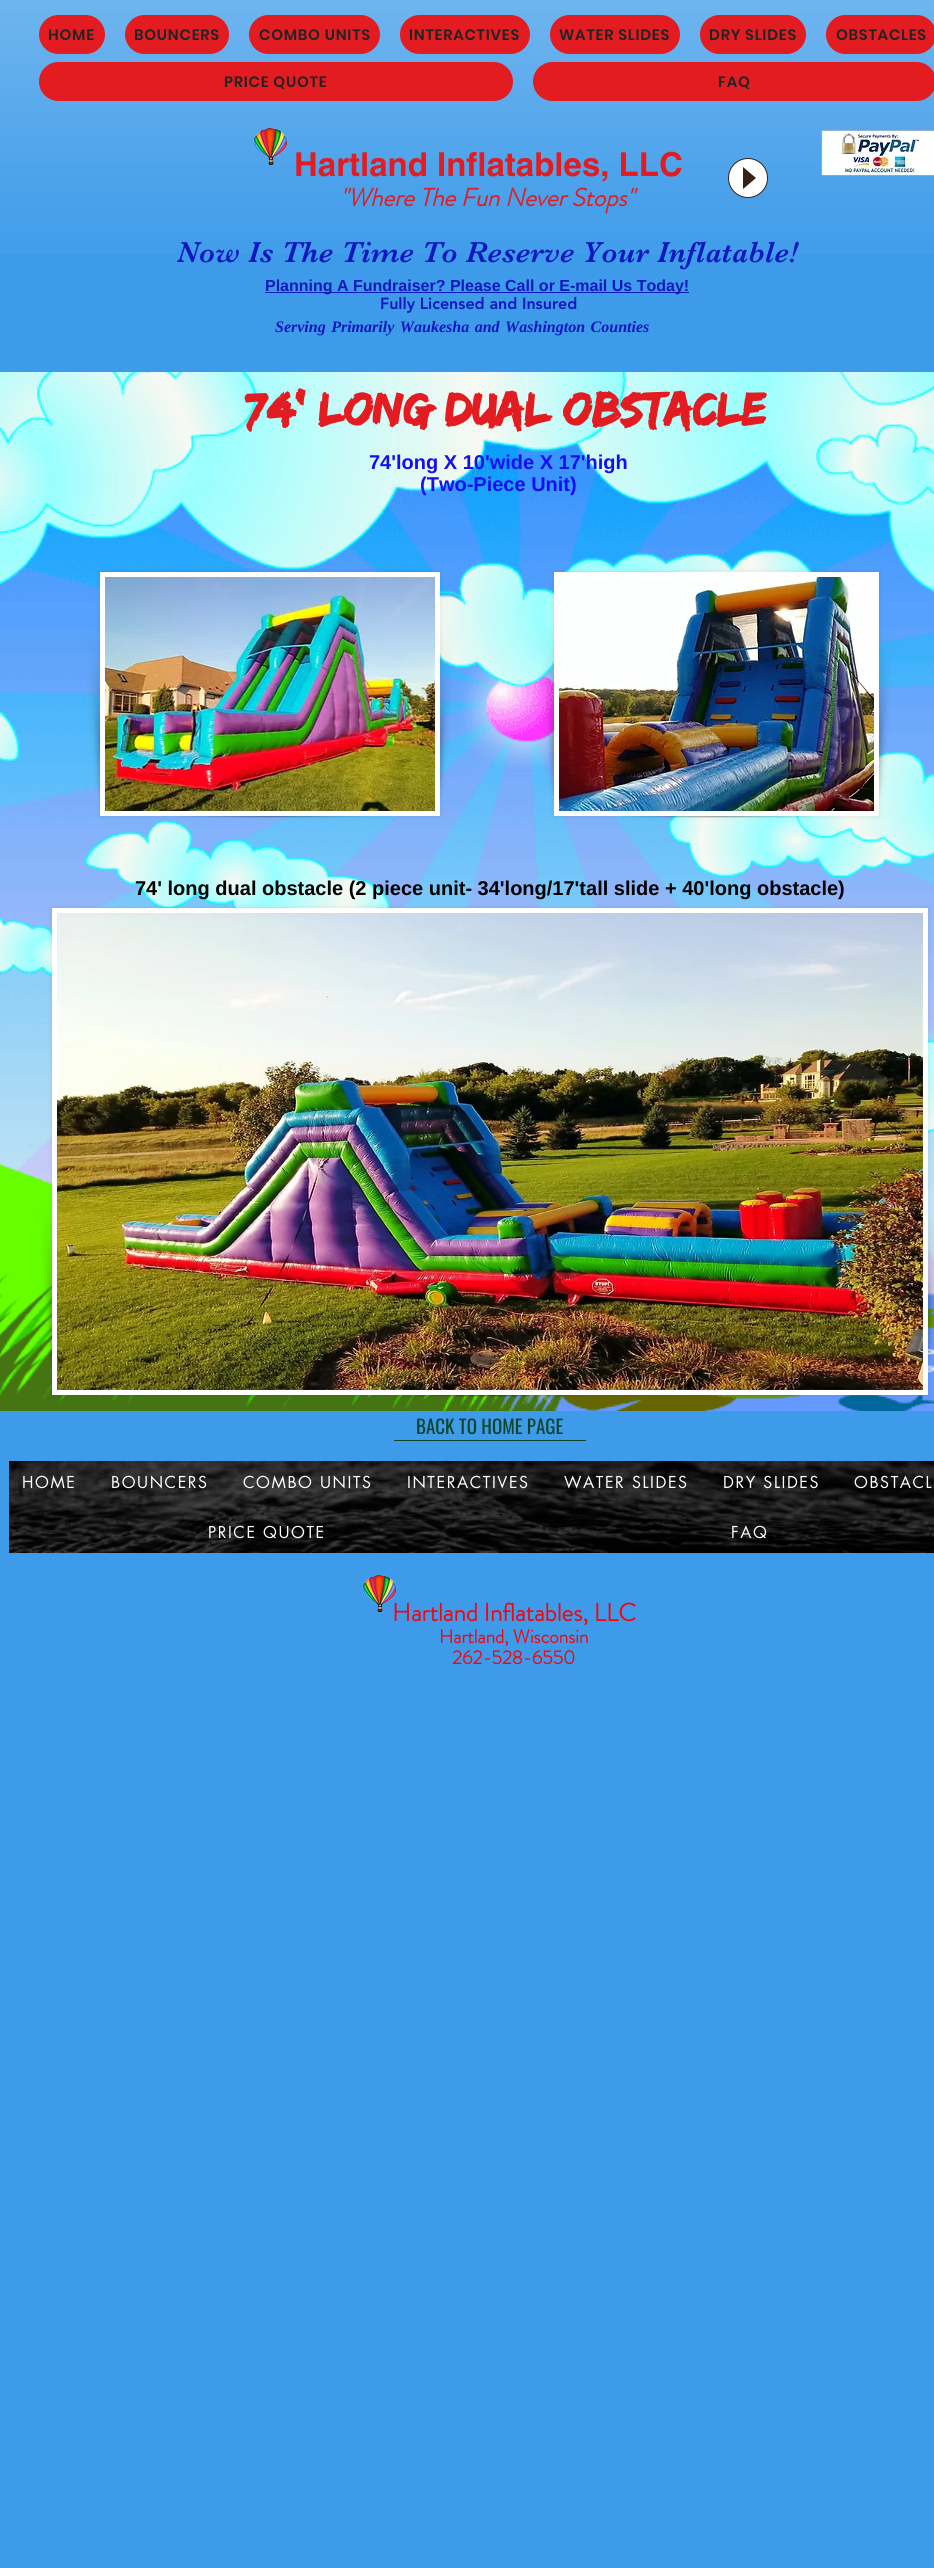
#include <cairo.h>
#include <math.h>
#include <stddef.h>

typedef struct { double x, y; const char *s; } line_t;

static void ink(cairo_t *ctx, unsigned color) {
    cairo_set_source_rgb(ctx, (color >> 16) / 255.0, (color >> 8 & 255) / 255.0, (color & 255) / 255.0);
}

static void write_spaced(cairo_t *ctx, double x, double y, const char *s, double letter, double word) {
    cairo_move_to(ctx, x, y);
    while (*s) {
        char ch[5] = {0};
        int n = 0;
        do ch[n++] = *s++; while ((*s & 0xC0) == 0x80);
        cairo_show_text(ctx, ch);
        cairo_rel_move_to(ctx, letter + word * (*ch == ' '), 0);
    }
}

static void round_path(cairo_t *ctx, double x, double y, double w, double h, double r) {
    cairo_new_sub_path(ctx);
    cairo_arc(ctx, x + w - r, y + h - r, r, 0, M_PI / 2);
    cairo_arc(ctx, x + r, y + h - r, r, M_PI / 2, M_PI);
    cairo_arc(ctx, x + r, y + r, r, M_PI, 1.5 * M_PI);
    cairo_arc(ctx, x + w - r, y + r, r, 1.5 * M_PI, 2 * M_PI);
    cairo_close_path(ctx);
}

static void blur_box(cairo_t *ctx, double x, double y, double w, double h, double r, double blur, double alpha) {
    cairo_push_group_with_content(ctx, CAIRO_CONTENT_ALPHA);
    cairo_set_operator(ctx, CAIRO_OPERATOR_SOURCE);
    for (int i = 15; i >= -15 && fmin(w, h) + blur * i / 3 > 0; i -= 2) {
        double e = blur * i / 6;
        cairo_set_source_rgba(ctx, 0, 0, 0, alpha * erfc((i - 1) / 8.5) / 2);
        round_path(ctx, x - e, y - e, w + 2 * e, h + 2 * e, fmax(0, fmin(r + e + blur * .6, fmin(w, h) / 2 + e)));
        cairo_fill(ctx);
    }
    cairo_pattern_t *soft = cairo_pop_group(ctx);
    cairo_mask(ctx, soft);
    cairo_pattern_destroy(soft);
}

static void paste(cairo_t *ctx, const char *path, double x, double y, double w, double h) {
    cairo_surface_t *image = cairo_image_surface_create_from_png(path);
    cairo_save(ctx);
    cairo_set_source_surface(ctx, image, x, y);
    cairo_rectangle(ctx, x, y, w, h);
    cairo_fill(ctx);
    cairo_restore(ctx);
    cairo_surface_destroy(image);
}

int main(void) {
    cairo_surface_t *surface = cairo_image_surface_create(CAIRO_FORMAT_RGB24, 934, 2568);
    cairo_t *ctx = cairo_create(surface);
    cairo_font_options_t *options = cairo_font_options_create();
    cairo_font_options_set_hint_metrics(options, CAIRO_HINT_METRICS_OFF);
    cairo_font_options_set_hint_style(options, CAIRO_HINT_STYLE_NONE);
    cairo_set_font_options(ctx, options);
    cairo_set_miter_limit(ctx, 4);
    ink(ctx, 0x3D9BE9);
    cairo_paint(ctx);
    paste(ctx, "media/1.png", 0, 0, 934, 254);
    ink(ctx, 0xE21C21);
    round_path(ctx, 39, 15, 66, 39, 19.5);
    cairo_fill(ctx);
    cairo_select_font_face(ctx, "Poppins SemiBold", CAIRO_FONT_SLANT_NORMAL, CAIRO_FONT_WEIGHT_NORMAL);
    cairo_set_font_size(ctx, 15);
    ink(ctx, 0x242323);
    write_spaced(ctx, 48, 40, "HOME", 0.75, 0);
    ink(ctx, 0xE21C21);
    round_path(ctx, 125, 15, 104, 39, 19.5);
    cairo_fill(ctx);
    ink(ctx, 0x242323);
    write_spaced(ctx, 134, 40, "BOUNCERS", 0.75, 0);
    ink(ctx, 0xE21C21);
    round_path(ctx, 249, 15, 131, 39, 19.5);
    cairo_fill(ctx);
    ink(ctx, 0x242323);
    write_spaced(ctx, 259, 40, "COMBO UNITS", 0.75, 0);
    ink(ctx, 0xE21C21);
    round_path(ctx, 400, 15, 130, 39, 19.5);
    cairo_fill(ctx);
    ink(ctx, 0x242323);
    write_spaced(ctx, 409, 40, "INTERACTIVES", 0.75, 0);
    ink(ctx, 0xE21C21);
    round_path(ctx, 550, 15, 130, 39, 19.5);
    cairo_fill(ctx);
    ink(ctx, 0x242323);
    write_spaced(ctx, 559, 40, "WATER SLIDES", 0.75, 0);
    ink(ctx, 0xE21C21);
    round_path(ctx, 700, 15, 106, 39, 19.5);
    cairo_fill(ctx);
    ink(ctx, 0x242323);
    write_spaced(ctx, 709, 40, "DRY SLIDES", 0.75, 0);
    ink(ctx, 0xE21C21);
    round_path(ctx, 826, 15, 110, 39, 19.5);
    cairo_fill(ctx);
    ink(ctx, 0x242323);
    write_spaced(ctx, 836, 40, "OBSTACLES", 0.75, 0);
    ink(ctx, 0xE21C21);
    round_path(ctx, 39, 62, 474, 39, 19.5);
    cairo_fill(ctx);
    ink(ctx, 0x242323);
    write_spaced(ctx, 224, 87, "PRICE QUOTE", 0.75, 0);
    ink(ctx, 0xE21C21);
    round_path(ctx, 533, 62, 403, 39, 19.5);
    cairo_fill(ctx);
    ink(ctx, 0x242323);
    write_spaced(ctx, 718, 87, "FAQ", 0.75, 0);
    paste(ctx, "media/2.png", 253, 127, 35, 39);
    cairo_select_font_face(ctx, "helvetica", CAIRO_FONT_SLANT_NORMAL, CAIRO_FONT_WEIGHT_BOLD);
    cairo_set_font_size(ctx, 33);
    ink(ctx, 0xE21C21);
    cairo_move_to(ctx, 294, 176);
    cairo_show_text(ctx, "Hartland Inflatables, LLC");
    cairo_select_font_face(ctx, "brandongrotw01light", CAIRO_FONT_SLANT_ITALIC, CAIRO_FONT_WEIGHT_BOLD);
    cairo_set_font_size(ctx, 25);
    cairo_move_to(ctx, 340, 206);
    cairo_show_text(ctx, "\"Where The Fun Never Stops\"");
    ink(ctx, 0xFFFFFF);
    cairo_new_path(ctx);
    cairo_arc(ctx, 748, 178, 19.5, 0, 2 * M_PI);
    cairo_fill_preserve(ctx);
    ink(ctx, 0x342216);
    cairo_set_line_width(ctx, 1);
    cairo_stroke(ctx);
    cairo_new_path(ctx);
    cairo_move_to(ctx, 743, 189);
    cairo_line_to(ctx, 743, 167);
    cairo_line_to(ctx, 756, 178);
    cairo_close_path(ctx);
    cairo_fill(ctx);
    paste(ctx, "media/3.png", 821, 130, 113, 46);
    cairo_select_font_face(ctx, "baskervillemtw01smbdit", CAIRO_FONT_SLANT_NORMAL, CAIRO_FONT_WEIGHT_NORMAL);
    cairo_set_font_size(ctx, 30);
    ink(ctx, 0x0F17BE);
    write_spaced(ctx, 177, 262, "Now Is The Time To Reserve Your Inflatable!", 0.3, 0);
    cairo_rectangle(ctx, 265, 292, 424, 1);
    cairo_fill(ctx);
    cairo_select_font_face(ctx, "Liberation Sans", CAIRO_FONT_SLANT_NORMAL, CAIRO_FONT_WEIGHT_BOLD);
    cairo_set_font_size(ctx, 16);
    cairo_move_to(ctx, 265, 291);
    cairo_show_text(ctx, "Planning A Fundraiser? Please Call or E-mail Us Today!");
    cairo_select_font_face(ctx, "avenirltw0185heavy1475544 Black", CAIRO_FONT_SLANT_NORMAL, CAIRO_FONT_WEIGHT_NORMAL);
    cairo_move_to(ctx, 380, 309);
    cairo_show_text(ctx, "Fully Licensed and Insured");
    cairo_select_font_face(ctx, "Liberation Serif", CAIRO_FONT_SLANT_ITALIC, CAIRO_FONT_WEIGHT_BOLD);
    write_spaced(ctx, 275, 332, "Serving Primarily Waukesha and Washington Counties", 0, 1.5);
    paste(ctx, "media/4.png", 0, 372, 934, 1039);
    cairo_select_font_face(ctx, "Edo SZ", CAIRO_FONT_SLANT_NORMAL, CAIRO_FONT_WEIGHT_BOLD);
    cairo_set_font_size(ctx, 48);
    ink(ctx, 0xE21C21);
    cairo_move_to(ctx, 244, 425);
    cairo_show_text(ctx, "74' long dual obstacle");
    cairo_select_font_face(ctx, "Liberation Sans", CAIRO_FONT_SLANT_NORMAL, CAIRO_FONT_WEIGHT_BOLD);
    cairo_set_font_size(ctx, 20);
    ink(ctx, 0x170DF2);
    cairo_move_to(ctx, 369, 469);
    cairo_show_text(ctx, "74'long X 10'wide X 17'high");
    cairo_move_to(ctx, 420, 491);
    cairo_show_text(ctx, "(Two-Piece Unit)");
    ink(ctx, 0x000000);
    blur_box(ctx, 100, 572, 340, 244, 0, 2.5, 0.1);
    paste(ctx, "media/5.png", 76, 576, 24, 220);
    ink(ctx, 0xFFFFFF);
    cairo_rectangle(ctx, 100, 572, 340, 244);
    cairo_fill(ctx);
    paste(ctx, "media/6.png", 105, 577, 330, 234);
    paste(ctx, "media/7.png", 176, 816, 188, 2);
    paste(ctx, "media/8.png", 440, 576, 24, 220);
    ink(ctx, 0x000000);
    blur_box(ctx, 554, 572, 325, 244, 0, 2.5, 0.1);
    paste(ctx, "media/9.png", 530, 576, 24, 220);
    ink(ctx, 0xFFFFFF);
    cairo_rectangle(ctx, 554, 572, 325, 244);
    cairo_fill(ctx);
    paste(ctx, "media/10.png", 559, 577, 315, 234);
    paste(ctx, "media/11.png", 623, 816, 188, 2);
    paste(ctx, "media/12.png", 879, 576, 24, 220);
    ink(ctx, 0x000000);
    cairo_move_to(ctx, 135, 895);
    cairo_show_text(ctx, "74' long dual obstacle (2 piece unit- 34'long/17'tall slide + 40'long obstacle)");
    ink(ctx, 0x000000);
    blur_box(ctx, 52, 908, 876, 487, 0, 2.5, 0.1);
    paste(ctx, "media/13.png", 28, 1145, 24, 217);
    ink(ctx, 0xFFFFFF);
    cairo_rectangle(ctx, 52, 908, 876, 487);
    cairo_fill(ctx);
    paste(ctx, "media/14.png", 57, 913, 866, 477);
    paste(ctx, "media/15.png", 399, 1395, 177, 2);
    paste(ctx, "media/16.png", 928, 1217, 6, 148);
    ink(ctx, 0x0C4426);
    cairo_rectangle(ctx, 394, 1440, 192, 1);
    cairo_fill(ctx);
    cairo_select_font_face(ctx, "Oswald", CAIRO_FONT_SLANT_NORMAL, CAIRO_FONT_WEIGHT_NORMAL);
    cairo_set_font_size(ctx, 19);
    cairo_move_to(ctx, 416, 1434);
    cairo_show_text(ctx, "BACK TO HOME PAGE");
    paste(ctx, "media/17.png", 9, 1461, 925, 92);
    cairo_select_font_face(ctx, "futura", CAIRO_FONT_SLANT_NORMAL, CAIRO_FONT_WEIGHT_NORMAL);
    cairo_set_font_size(ctx, 16);
    ink(ctx, 0xFFFFFF);
    {
        static const line_t items[] = {
            {22, 1488, "HOME"},
            {111, 1488, "BOUNCERS"},
            {243, 1488, "COMBO UNITS"},
            {407, 1488, "INTERACTIVES"},
            {564, 1488, "WATER SLIDES"},
            {723, 1488, "DRY SLIDES"},
            {854, 1488, "OBSTACL"},
            {208, 1538, "PRICE QUOTE"},
            {731, 1538, "FAQ"},
        };
        for (size_t i = 0; i < sizeof items / sizeof *items; i++) {
            write_spaced(ctx, items[i].x, items[i].y, items[i].s, 1.6, 0);
        }
    }
    cairo_select_font_face(ctx, "brandongrotw01light", CAIRO_FONT_SLANT_NORMAL, CAIRO_FONT_WEIGHT_BOLD);
    cairo_set_font_size(ctx, 25);
    ink(ctx, 0xFF000A);
    cairo_move_to(ctx, 392, 1621);
    cairo_show_text(ctx, "Hartland Inflatables, LLC");
    paste(ctx, "media/18.png", 362, 1574, 35, 39);
    cairo_set_font_size(ctx, 19);
    cairo_move_to(ctx, 439, 1643);
    cairo_show_text(ctx, "Hartland, Wisconsin");
    cairo_move_to(ctx, 452, 1664);
    cairo_show_text(ctx, "262-528-6550");
    cairo_surface_write_to_png(surface, "image.png");
    cairo_font_options_destroy(options);
    cairo_destroy(ctx);
    cairo_surface_destroy(surface);
    return 0;
}
